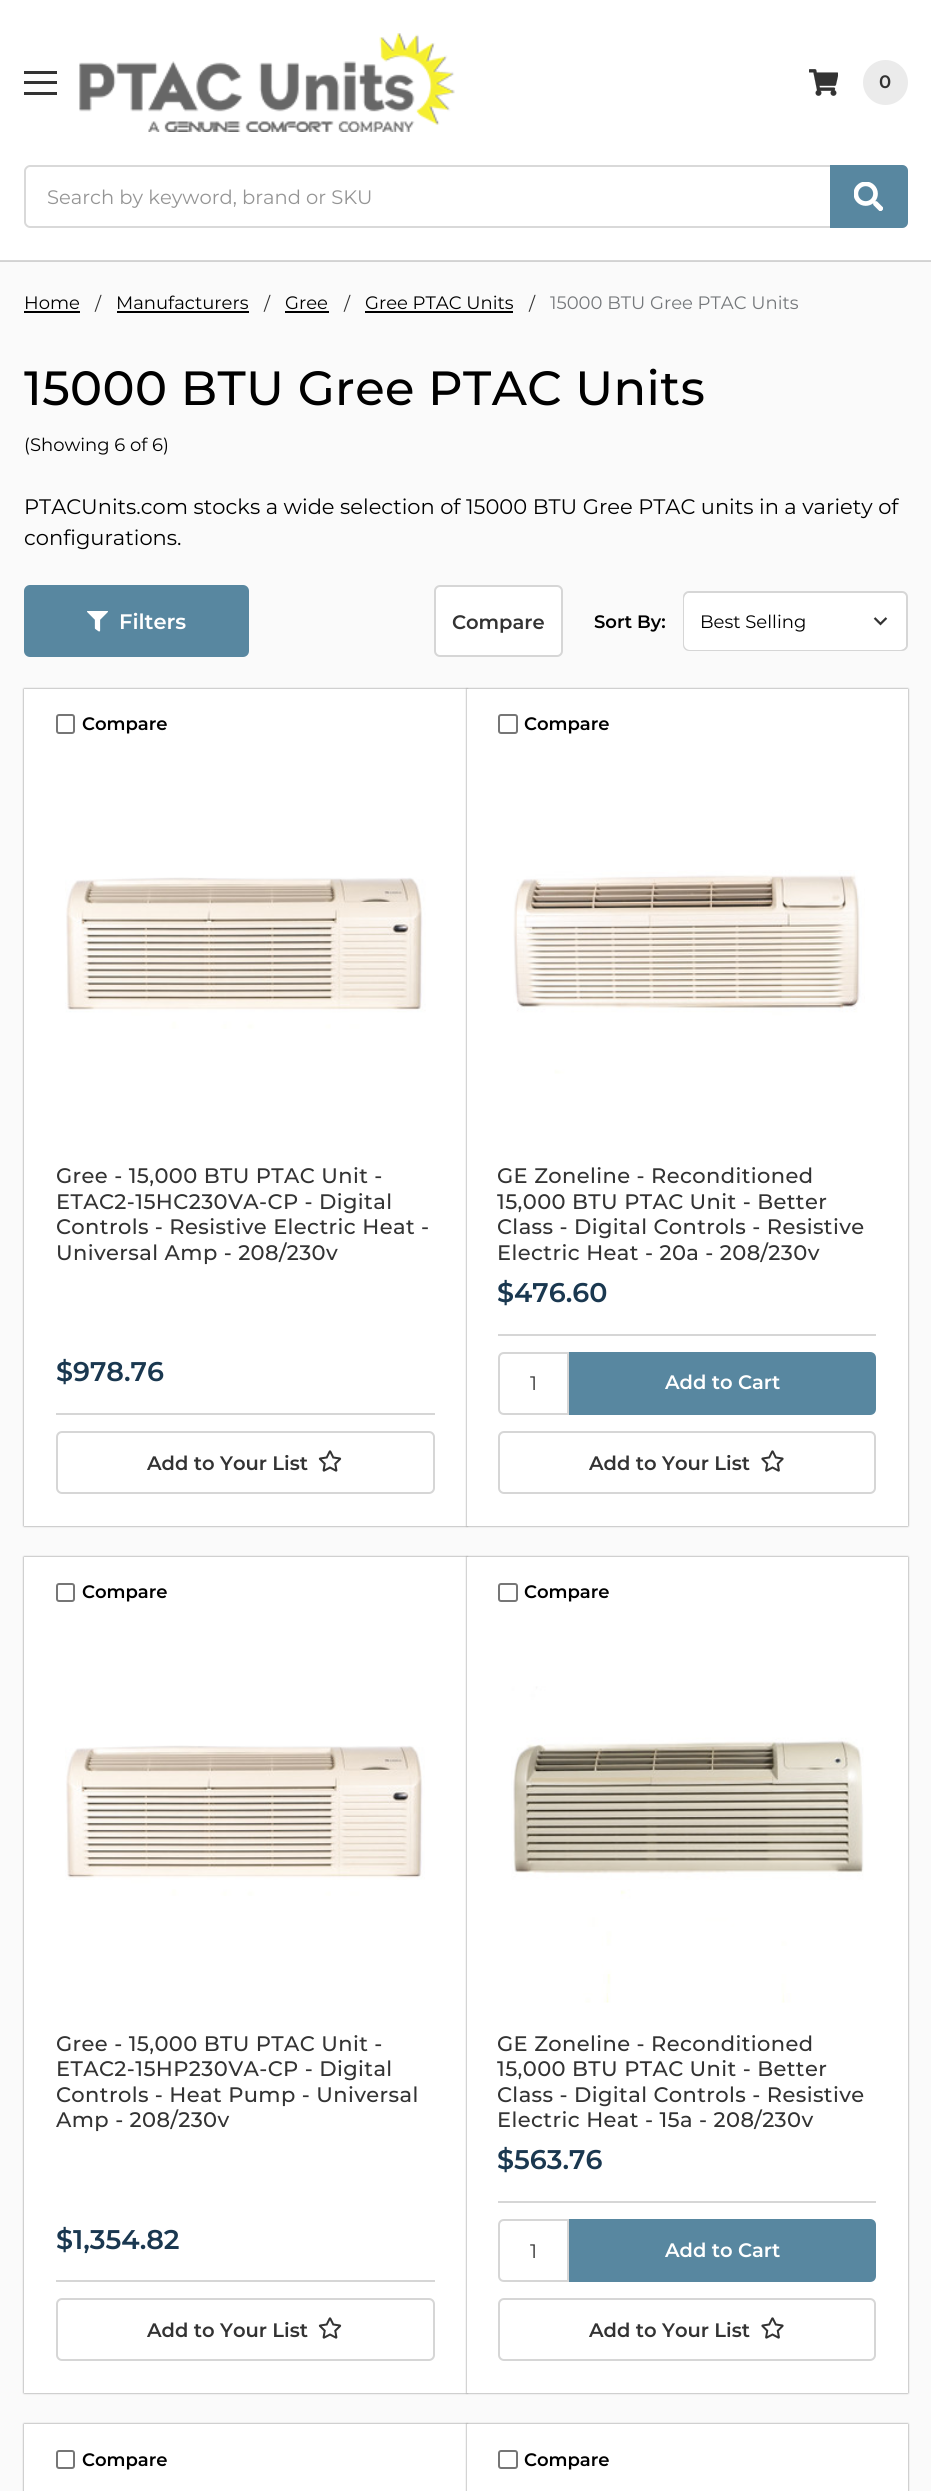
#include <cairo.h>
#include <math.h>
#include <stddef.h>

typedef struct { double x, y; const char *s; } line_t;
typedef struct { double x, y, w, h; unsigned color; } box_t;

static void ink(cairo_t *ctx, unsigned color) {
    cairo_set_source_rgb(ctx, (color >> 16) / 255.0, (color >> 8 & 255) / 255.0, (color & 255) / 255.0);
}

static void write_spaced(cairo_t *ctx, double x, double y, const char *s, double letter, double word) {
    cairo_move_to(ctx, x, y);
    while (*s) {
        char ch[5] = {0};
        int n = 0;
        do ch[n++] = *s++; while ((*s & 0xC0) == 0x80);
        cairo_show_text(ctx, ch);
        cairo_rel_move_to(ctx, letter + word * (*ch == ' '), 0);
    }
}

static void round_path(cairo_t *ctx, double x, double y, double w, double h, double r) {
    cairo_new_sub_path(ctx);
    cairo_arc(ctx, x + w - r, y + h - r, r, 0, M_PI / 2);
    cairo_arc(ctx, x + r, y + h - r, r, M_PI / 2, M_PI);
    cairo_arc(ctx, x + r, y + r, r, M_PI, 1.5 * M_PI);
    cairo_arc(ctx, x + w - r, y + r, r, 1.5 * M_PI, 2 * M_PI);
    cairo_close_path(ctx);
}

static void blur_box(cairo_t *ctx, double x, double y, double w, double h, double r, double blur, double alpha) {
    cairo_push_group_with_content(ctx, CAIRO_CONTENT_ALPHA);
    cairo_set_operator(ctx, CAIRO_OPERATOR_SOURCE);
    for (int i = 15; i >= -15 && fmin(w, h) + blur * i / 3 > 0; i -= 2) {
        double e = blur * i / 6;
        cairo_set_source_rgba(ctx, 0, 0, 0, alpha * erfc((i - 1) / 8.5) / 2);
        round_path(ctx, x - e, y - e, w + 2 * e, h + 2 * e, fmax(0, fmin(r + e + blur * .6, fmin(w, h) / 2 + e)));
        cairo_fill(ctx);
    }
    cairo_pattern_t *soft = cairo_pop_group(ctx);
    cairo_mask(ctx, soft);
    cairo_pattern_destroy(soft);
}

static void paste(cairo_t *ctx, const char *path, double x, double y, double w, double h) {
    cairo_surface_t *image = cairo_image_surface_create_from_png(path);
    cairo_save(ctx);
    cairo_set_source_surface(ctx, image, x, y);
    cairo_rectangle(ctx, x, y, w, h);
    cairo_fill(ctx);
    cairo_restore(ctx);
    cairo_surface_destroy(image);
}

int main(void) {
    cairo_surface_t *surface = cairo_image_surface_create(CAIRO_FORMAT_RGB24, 931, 2491);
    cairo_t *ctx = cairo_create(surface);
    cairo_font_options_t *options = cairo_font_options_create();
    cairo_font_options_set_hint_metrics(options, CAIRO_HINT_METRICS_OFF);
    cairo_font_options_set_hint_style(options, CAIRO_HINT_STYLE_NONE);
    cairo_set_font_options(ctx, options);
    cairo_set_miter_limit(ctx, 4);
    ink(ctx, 0xFAFAFA);
    cairo_paint(ctx);
    {
        static const box_t items[] = {
            {0, 261, 931, 1, 0xD2D2D2},
            {0, 0, 931, 260, 0xFFFFFF},
            {0, 260, 931, 1, 0xD6D6D6},
            {24, 81, 33, 3, 0x333333},
            {24, 71, 33, 3, 0x333333},
            {24, 92, 33, 3, 0x333333},
        };
        for (size_t i = 0; i < sizeof items / sizeof *items; i++) {
            ink(ctx, items[i].color);
            cairo_rectangle(ctx, items[i].x, items[i].y, items[i].w, items[i].h);
            cairo_fill(ctx);
        }
    }
    paste(ctx, "media/1.png", 79, 33, 376, 99);
    paste(ctx, "media/2.png", 809, 69, 29, 27);
    ink(ctx, 0xEBEBEB);
    cairo_arc(ctx, 885.5, 82.5, 22.5, 0, 2 * M_PI);
    cairo_fill(ctx);
    cairo_select_font_face(ctx, "Montserrat SemiBold", CAIRO_FONT_SLANT_NORMAL, CAIRO_FONT_WEIGHT_NORMAL);
    cairo_set_font_size(ctx, 18);
    ink(ctx, 0x333333);
    cairo_move_to(ctx, 879, 88);
    cairo_show_text(ctx, "0");
    ink(ctx, 0xD9D9D9);
    cairo_set_fill_rule(ctx, CAIRO_FILL_RULE_EVEN_ODD);
    cairo_new_path(ctx);
    cairo_move_to(ctx, 30, 165);
    cairo_curve_to(ctx, 27, 165, 24, 168, 24, 171);
    cairo_line_to(ctx, 24, 222);
    cairo_curve_to(ctx, 24, 225, 27, 228, 30, 228);
    cairo_line_to(ctx, 902, 228);
    cairo_curve_to(ctx, 905, 228, 908, 225, 908, 222);
    cairo_line_to(ctx, 908, 171);
    cairo_curve_to(ctx, 908, 168, 905, 165, 902, 165);
    cairo_close_path(ctx);
    cairo_move_to(ctx, 30, 167);
    cairo_curve_to(ctx, 28, 167, 26, 169, 26, 171);
    cairo_line_to(ctx, 26, 222);
    cairo_curve_to(ctx, 26, 224, 28, 226, 30, 226);
    cairo_line_to(ctx, 906, 226);
    cairo_line_to(ctx, 906, 167);
    cairo_close_path(ctx);
    cairo_fill(ctx);
    cairo_select_font_face(ctx, "Montserrat Thin", CAIRO_FONT_SLANT_NORMAL, CAIRO_FONT_WEIGHT_NORMAL);
    cairo_set_font_size(ctx, 19.5);
    ink(ctx, 0x959595);
    cairo_move_to(ctx, 47, 204);
    cairo_show_text(ctx, "Search by keyword, brand or SKU");
    ink(ctx, 0x5887A0);
    cairo_new_path(ctx);
    cairo_move_to(ctx, 830, 165);
    cairo_line_to(ctx, 902, 165);
    cairo_curve_to(ctx, 905.5, 165, 908, 167.5, 908, 171);
    cairo_line_to(ctx, 908, 222);
    cairo_curve_to(ctx, 908, 225.5, 905.5, 228, 902, 228);
    cairo_line_to(ctx, 830, 228);
    cairo_close_path(ctx);
    cairo_fill(ctx);
    paste(ctx, "media/3.png", 854, 182, 29, 29);
    cairo_set_font_size(ctx, 18);
    ink(ctx, 0x000000);
    cairo_move_to(ctx, 24, 309);
    cairo_show_text(ctx, "Home");
    cairo_rectangle(ctx, 24, 311, 56, 2);
    cairo_fill(ctx);
    ink(ctx, 0x333333);
    cairo_move_to(ctx, 95, 310);
    cairo_show_text(ctx, "/");
    ink(ctx, 0x000000);
    cairo_move_to(ctx, 116, 309);
    cairo_show_text(ctx, "Manufacturers");
    cairo_rectangle(ctx, 117, 311, 132, 2);
    cairo_fill(ctx);
    ink(ctx, 0x333333);
    cairo_move_to(ctx, 264, 310);
    cairo_show_text(ctx, "/");
    ink(ctx, 0x000000);
    cairo_move_to(ctx, 285, 309);
    cairo_show_text(ctx, "Gree");
    cairo_rectangle(ctx, 285, 311, 44, 2);
    cairo_fill(ctx);
    ink(ctx, 0x333333);
    cairo_move_to(ctx, 344, 310);
    cairo_show_text(ctx, "/");
    ink(ctx, 0x000000);
    cairo_move_to(ctx, 365, 309);
    cairo_show_text(ctx, "Gree PTAC Units");
    cairo_rectangle(ctx, 365, 311, 148, 2);
    cairo_fill(ctx);
    ink(ctx, 0x333333);
    cairo_move_to(ctx, 529, 310);
    cairo_show_text(ctx, "/");
    ink(ctx, 0x75787B);
    cairo_move_to(ctx, 550, 309);
    cairo_show_text(ctx, "15000 BTU Gree PTAC Units");
    cairo_select_font_face(ctx, "Montserrat Medium", CAIRO_FONT_SLANT_NORMAL, CAIRO_FONT_WEIGHT_NORMAL);
    cairo_set_font_size(ctx, 48);
    ink(ctx, 0x000000);
    write_spaced(ctx, 24, 405, "15000 BTU Gree PTAC Units", 0.4, 0);
    cairo_select_font_face(ctx, "Montserrat Thin", CAIRO_FONT_SLANT_NORMAL, CAIRO_FONT_WEIGHT_NORMAL);
    cairo_set_font_size(ctx, 18);
    cairo_move_to(ctx, 24, 451);
    cairo_show_text(ctx, "(Showing 6 of 6)");
    cairo_set_font_size(ctx, 21);
    cairo_move_to(ctx, 24, 514);
    cairo_show_text(ctx, "PTACUnits.com stocks a wide selection of 15000 BTU Gree PTAC units in a variety of");
    cairo_move_to(ctx, 24, 545);
    cairo_show_text(ctx, "configurations.");
    ink(ctx, 0x5887A0);
    round_path(ctx, 24, 585, 225, 72, 6);
    cairo_fill(ctx);
    paste(ctx, "media/4.png", 87, 611, 21, 21);
    cairo_select_font_face(ctx, "Montserrat SemiBold", CAIRO_FONT_SLANT_NORMAL, CAIRO_FONT_WEIGHT_NORMAL);
    ink(ctx, 0xFFFFFF);
    cairo_move_to(ctx, 119, 629);
    cairo_show_text(ctx, "Filters");
    round_path(ctx, 435, 586, 127, 70, 5);
    cairo_fill_preserve(ctx);
    ink(ctx, 0xD6D6D6);
    cairo_stroke(ctx);
    cairo_set_font_size(ctx, 19.5);
    ink(ctx, 0x333333);
    cairo_move_to(ctx, 452, 629);
    cairo_show_text(ctx, "Compare");
    cairo_set_font_size(ctx, 18);
    ink(ctx, 0x000000);
    cairo_move_to(ctx, 594, 628);
    cairo_show_text(ctx, "Sort By:");
    ink(ctx, 0xFFFFFF);
    round_path(ctx, 684, 592, 223, 58, 5);
    cairo_fill_preserve(ctx);
    ink(ctx, 0xD6D6D6);
    cairo_stroke(ctx);
    cairo_save(ctx);
    cairo_set_fill_rule(ctx, CAIRO_FILL_RULE_WINDING);
    round_path(ctx, 684, 593, 222, 57, 5);
    cairo_clip(ctx);
    ink(ctx, 0xFFFFFF);
    round_path(ctx, 684, 593, 222, 57, 6);
    cairo_fill(ctx);
    cairo_restore(ctx);
    paste(ctx, "media/5.png", 873, 617, 15, 9);
    cairo_select_font_face(ctx, "Montserrat Thin", CAIRO_FONT_SLANT_NORMAL, CAIRO_FONT_WEIGHT_NORMAL);
    ink(ctx, 0x000000);
    cairo_move_to(ctx, 700, 628);
    cairo_show_text(ctx, "Best Selling");
    ink(ctx, 0x000000);
    blur_box(ctx, 24, 689, 443, 837, 0, 1, 0.5);
    ink(ctx, 0xFFFFFF);
    cairo_rectangle(ctx, 24, 689, 443, 837);
    cairo_fill(ctx);
    round_path(ctx, 57, 715, 17, 18, 2);
    ink(ctx, 0x767676);
    cairo_stroke(ctx);
    cairo_select_font_face(ctx, "Montserrat SemiBold", CAIRO_FONT_SLANT_NORMAL, CAIRO_FONT_WEIGHT_NORMAL);
    ink(ctx, 0x000000);
    cairo_move_to(ctx, 82, 730);
    cairo_show_text(ctx, "Compare");
    paste(ctx, "media/6.png", 65, 877, 361, 152);
    cairo_select_font_face(ctx, "Montserrat Medium", CAIRO_FONT_SLANT_NORMAL, CAIRO_FONT_WEIGHT_NORMAL);
    cairo_set_font_size(ctx, 21);
    ink(ctx, 0x333333);
    {
        static const line_t items[] = {
            {56, 1183, "Gree - 15,000 BTU PTAC Unit -"},
            {56, 1209, "ETAC2-15HC230VA-CP - Digital"},
            {56, 1234, "Controls - Resistive Electric Heat -"},
            {56, 1260, "Universal Amp - 208/230v"},
        };
        for (size_t i = 0; i < sizeof items / sizeof *items; i++) {
            write_spaced(ctx, items[i].x, items[i].y, items[i].s, 0.4, 0);
        }
    }
    cairo_select_font_face(ctx, "Montserrat SemiBold", CAIRO_FONT_SLANT_NORMAL, CAIRO_FONT_WEIGHT_NORMAL);
    cairo_set_font_size(ctx, 27);
    ink(ctx, 0x1A3850);
    cairo_move_to(ctx, 56, 1381);
    cairo_show_text(ctx, "$978.76");
    ink(ctx, 0xD6D6D6);
    cairo_rectangle(ctx, 56, 1413, 379, 2);
    cairo_fill(ctx);
    round_path(ctx, 57, 1432, 377, 61, 5);
    cairo_stroke(ctx);
    cairo_set_font_size(ctx, 19.5);
    ink(ctx, 0x333333);
    cairo_move_to(ctx, 147, 1470);
    cairo_show_text(ctx, "Add to Your List");
    paste(ctx, "media/7.png", 318, 1450, 24, 22);
    ink(ctx, 0x000000);
    blur_box(ctx, 467, 689, 441, 837, 0, 1, 0.5);
    ink(ctx, 0xFFFFFF);
    cairo_rectangle(ctx, 467, 689, 441, 837);
    cairo_fill(ctx);
    round_path(ctx, 499, 715, 18, 18, 2);
    ink(ctx, 0x767676);
    cairo_stroke(ctx);
    cairo_set_font_size(ctx, 18);
    ink(ctx, 0x000000);
    cairo_move_to(ctx, 524, 730);
    cairo_show_text(ctx, "Compare");
    paste(ctx, "media/8.png", 513, 870, 352, 204);
    cairo_select_font_face(ctx, "Montserrat Medium", CAIRO_FONT_SLANT_NORMAL, CAIRO_FONT_WEIGHT_NORMAL);
    cairo_set_font_size(ctx, 21);
    ink(ctx, 0x333333);
    {
        static const line_t items[] = {
            {497, 1183, "GE Zoneline - Reconditioned"},
            {497, 1209, "15,000 BTU PTAC Unit - Better"},
            {497, 1234, "Class - Digital Controls - Resistive"},
            {497, 1260, "Electric Heat - 20a - 208/230v"},
        };
        for (size_t i = 0; i < sizeof items / sizeof *items; i++) {
            write_spaced(ctx, items[i].x, items[i].y, items[i].s, 0.4, 0);
        }
    }
    cairo_select_font_face(ctx, "Montserrat SemiBold", CAIRO_FONT_SLANT_NORMAL, CAIRO_FONT_WEIGHT_NORMAL);
    cairo_set_font_size(ctx, 27);
    ink(ctx, 0x1A3850);
    cairo_move_to(ctx, 497, 1302);
    cairo_show_text(ctx, "$476.60");
    ink(ctx, 0xD6D6D6);
    cairo_rectangle(ctx, 498, 1334, 378, 2);
    cairo_fill(ctx);
    cairo_new_path(ctx);
    cairo_move_to(ctx, 504, 1353);
    cairo_line_to(ctx, 568, 1353);
    cairo_line_to(ctx, 568, 1414);
    cairo_line_to(ctx, 504, 1414);
    cairo_curve_to(ctx, 501, 1414, 499, 1412, 499, 1409);
    cairo_line_to(ctx, 499, 1358);
    cairo_curve_to(ctx, 499, 1355, 501, 1353, 504, 1353);
    cairo_close_path(ctx);
    cairo_stroke(ctx);
    cairo_select_font_face(ctx, "Montserrat Thin", CAIRO_FONT_SLANT_NORMAL, CAIRO_FONT_WEIGHT_NORMAL);
    cairo_set_font_size(ctx, 19.5);
    ink(ctx, 0x333333);
    cairo_move_to(ctx, 530, 1390);
    cairo_show_text(ctx, "1");
    ink(ctx, 0x5887A0);
    cairo_new_path(ctx);
    cairo_move_to(ctx, 570, 1353);
    cairo_line_to(ctx, 870, 1353);
    cairo_curve_to(ctx, 873, 1353, 875, 1355, 875, 1358);
    cairo_line_to(ctx, 875, 1409);
    cairo_curve_to(ctx, 875, 1412, 873, 1414, 870, 1414);
    cairo_line_to(ctx, 570, 1414);
    cairo_close_path(ctx);
    cairo_fill_preserve(ctx);
    cairo_stroke(ctx);
    cairo_select_font_face(ctx, "Montserrat SemiBold", CAIRO_FONT_SLANT_NORMAL, CAIRO_FONT_WEIGHT_NORMAL);
    ink(ctx, 0xFFFFFF);
    cairo_move_to(ctx, 665, 1389);
    cairo_show_text(ctx, "Add to Cart");
    round_path(ctx, 499, 1432, 376, 61, 5);
    ink(ctx, 0xD6D6D6);
    cairo_stroke(ctx);
    ink(ctx, 0x333333);
    cairo_move_to(ctx, 589, 1470);
    cairo_show_text(ctx, "Add to Your List");
    paste(ctx, "media/9.png", 761, 1450, 23, 22);
    ink(ctx, 0x000000);
    blur_box(ctx, 24, 1557, 443, 836, 0, 1, 0.5);
    ink(ctx, 0xFFFFFF);
    cairo_rectangle(ctx, 24, 1557, 443, 836);
    cairo_fill(ctx);
    round_path(ctx, 57, 1584, 17, 17, 2);
    ink(ctx, 0x767676);
    cairo_stroke(ctx);
    cairo_set_font_size(ctx, 18);
    ink(ctx, 0x000000);
    cairo_move_to(ctx, 82, 1598);
    cairo_show_text(ctx, "Compare");
    paste(ctx, "media/10.png", 65, 1745, 360, 151);
    cairo_select_font_face(ctx, "Montserrat Medium", CAIRO_FONT_SLANT_NORMAL, CAIRO_FONT_WEIGHT_NORMAL);
    cairo_set_font_size(ctx, 21);
    ink(ctx, 0x333333);
    {
        static const line_t items[] = {
            {56, 2051, "Gree - 15,000 BTU PTAC Unit -"},
            {56, 2076, "ETAC2-15HP230VA-CP - Digital"},
            {56, 2102, "Controls - Heat Pump - Universal"},
            {56, 2127, "Amp - 208/230v"},
        };
        for (size_t i = 0; i < sizeof items / sizeof *items; i++) {
            write_spaced(ctx, items[i].x, items[i].y, items[i].s, 0.4, 0);
        }
    }
    cairo_select_font_face(ctx, "Montserrat SemiBold", CAIRO_FONT_SLANT_NORMAL, CAIRO_FONT_WEIGHT_NORMAL);
    cairo_set_font_size(ctx, 27);
    ink(ctx, 0x1A3850);
    cairo_move_to(ctx, 56, 2249);
    cairo_show_text(ctx, "$1,354.82");
    ink(ctx, 0xD6D6D6);
    cairo_rectangle(ctx, 56, 2280, 379, 2);
    cairo_fill(ctx);
    round_path(ctx, 57, 2299, 377, 61, 5);
    cairo_stroke(ctx);
    cairo_set_font_size(ctx, 19.5);
    ink(ctx, 0x333333);
    cairo_move_to(ctx, 147, 2337);
    cairo_show_text(ctx, "Add to Your List");
    paste(ctx, "media/7.png", 318, 2317, 24, 22);
    ink(ctx, 0x000000);
    blur_box(ctx, 467, 1557, 441, 836, 0, 1, 0.5);
    ink(ctx, 0xFFFFFF);
    cairo_rectangle(ctx, 467, 1557, 441, 836);
    cairo_fill(ctx);
    round_path(ctx, 499, 1584, 18, 17, 2);
    ink(ctx, 0x767676);
    cairo_stroke(ctx);
    cairo_set_font_size(ctx, 18);
    ink(ctx, 0x000000);
    cairo_move_to(ctx, 524, 1598);
    cairo_show_text(ctx, "Compare");
    paste(ctx, "media/11.png", 511, 1686, 353, 317);
    cairo_select_font_face(ctx, "Montserrat Medium", CAIRO_FONT_SLANT_NORMAL, CAIRO_FONT_WEIGHT_NORMAL);
    cairo_set_font_size(ctx, 21);
    ink(ctx, 0x333333);
    {
        static const line_t items[] = {
            {497, 2051, "GE Zoneline - Reconditioned"},
            {497, 2076, "15,000 BTU PTAC Unit - Better"},
            {497, 2102, "Class - Digital Controls - Resistive"},
            {497, 2127, "Electric Heat - 15a - 208/230v"},
        };
        for (size_t i = 0; i < sizeof items / sizeof *items; i++) {
            write_spaced(ctx, items[i].x, items[i].y, items[i].s, 0.4, 0);
        }
    }
    cairo_select_font_face(ctx, "Montserrat SemiBold", CAIRO_FONT_SLANT_NORMAL, CAIRO_FONT_WEIGHT_NORMAL);
    cairo_set_font_size(ctx, 27);
    ink(ctx, 0x1A3850);
    cairo_move_to(ctx, 497, 2169);
    cairo_show_text(ctx, "$563.76");
    ink(ctx, 0xD6D6D6);
    cairo_rectangle(ctx, 498, 2201, 378, 2);
    cairo_fill(ctx);
    cairo_new_path(ctx);
    cairo_move_to(ctx, 504, 2220);
    cairo_line_to(ctx, 568, 2220);
    cairo_line_to(ctx, 568, 2281);
    cairo_line_to(ctx, 504, 2281);
    cairo_curve_to(ctx, 501, 2281, 499, 2279, 499, 2276);
    cairo_line_to(ctx, 499, 2225);
    cairo_curve_to(ctx, 499, 2222, 501, 2220, 504, 2220);
    cairo_close_path(ctx);
    cairo_stroke(ctx);
    cairo_select_font_face(ctx, "Montserrat Thin", CAIRO_FONT_SLANT_NORMAL, CAIRO_FONT_WEIGHT_NORMAL);
    cairo_set_font_size(ctx, 19.5);
    ink(ctx, 0x333333);
    cairo_move_to(ctx, 530, 2258);
    cairo_show_text(ctx, "1");
    ink(ctx, 0x5887A0);
    cairo_new_path(ctx);
    cairo_move_to(ctx, 570, 2220);
    cairo_line_to(ctx, 870, 2220);
    cairo_curve_to(ctx, 873, 2220, 875, 2222, 875, 2225);
    cairo_line_to(ctx, 875, 2276);
    cairo_curve_to(ctx, 875, 2279, 873, 2281, 870, 2281);
    cairo_line_to(ctx, 570, 2281);
    cairo_close_path(ctx);
    cairo_fill_preserve(ctx);
    cairo_stroke(ctx);
    cairo_select_font_face(ctx, "Montserrat SemiBold", CAIRO_FONT_SLANT_NORMAL, CAIRO_FONT_WEIGHT_NORMAL);
    ink(ctx, 0xFFFFFF);
    cairo_move_to(ctx, 665, 2257);
    cairo_show_text(ctx, "Add to Cart");
    round_path(ctx, 499, 2299, 376, 61, 5);
    ink(ctx, 0xD6D6D6);
    cairo_stroke(ctx);
    ink(ctx, 0x333333);
    cairo_move_to(ctx, 589, 2337);
    cairo_show_text(ctx, "Add to Your List");
    paste(ctx, "media/9.png", 761, 2317, 23, 22);
    ink(ctx, 0x000000);
    blur_box(ctx, 24, 2424, 443, 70, 0, 1, 0.5);
    ink(ctx, 0xFFFFFF);
    cairo_rectangle(ctx, 24, 2424, 443, 67);
    cairo_fill(ctx);
    round_path(ctx, 57, 2451, 17, 17, 2);
    ink(ctx, 0x767676);
    cairo_stroke(ctx);
    cairo_set_font_size(ctx, 18);
    ink(ctx, 0x000000);
    cairo_move_to(ctx, 82, 2466);
    cairo_show_text(ctx, "Compare");
    ink(ctx, 0x000000);
    blur_box(ctx, 467, 2424, 441, 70, 0, 1, 0.5);
    ink(ctx, 0xFFFFFF);
    cairo_rectangle(ctx, 467, 2424, 441, 67);
    cairo_fill(ctx);
    round_path(ctx, 499, 2451, 18, 17, 2);
    ink(ctx, 0x767676);
    cairo_stroke(ctx);
    ink(ctx, 0x000000);
    cairo_move_to(ctx, 524, 2466);
    cairo_show_text(ctx, "Compare");
    cairo_surface_write_to_png(surface, "image.png");
    cairo_font_options_destroy(options);
    cairo_destroy(ctx);
    cairo_surface_destroy(surface);
    return 0;
}
